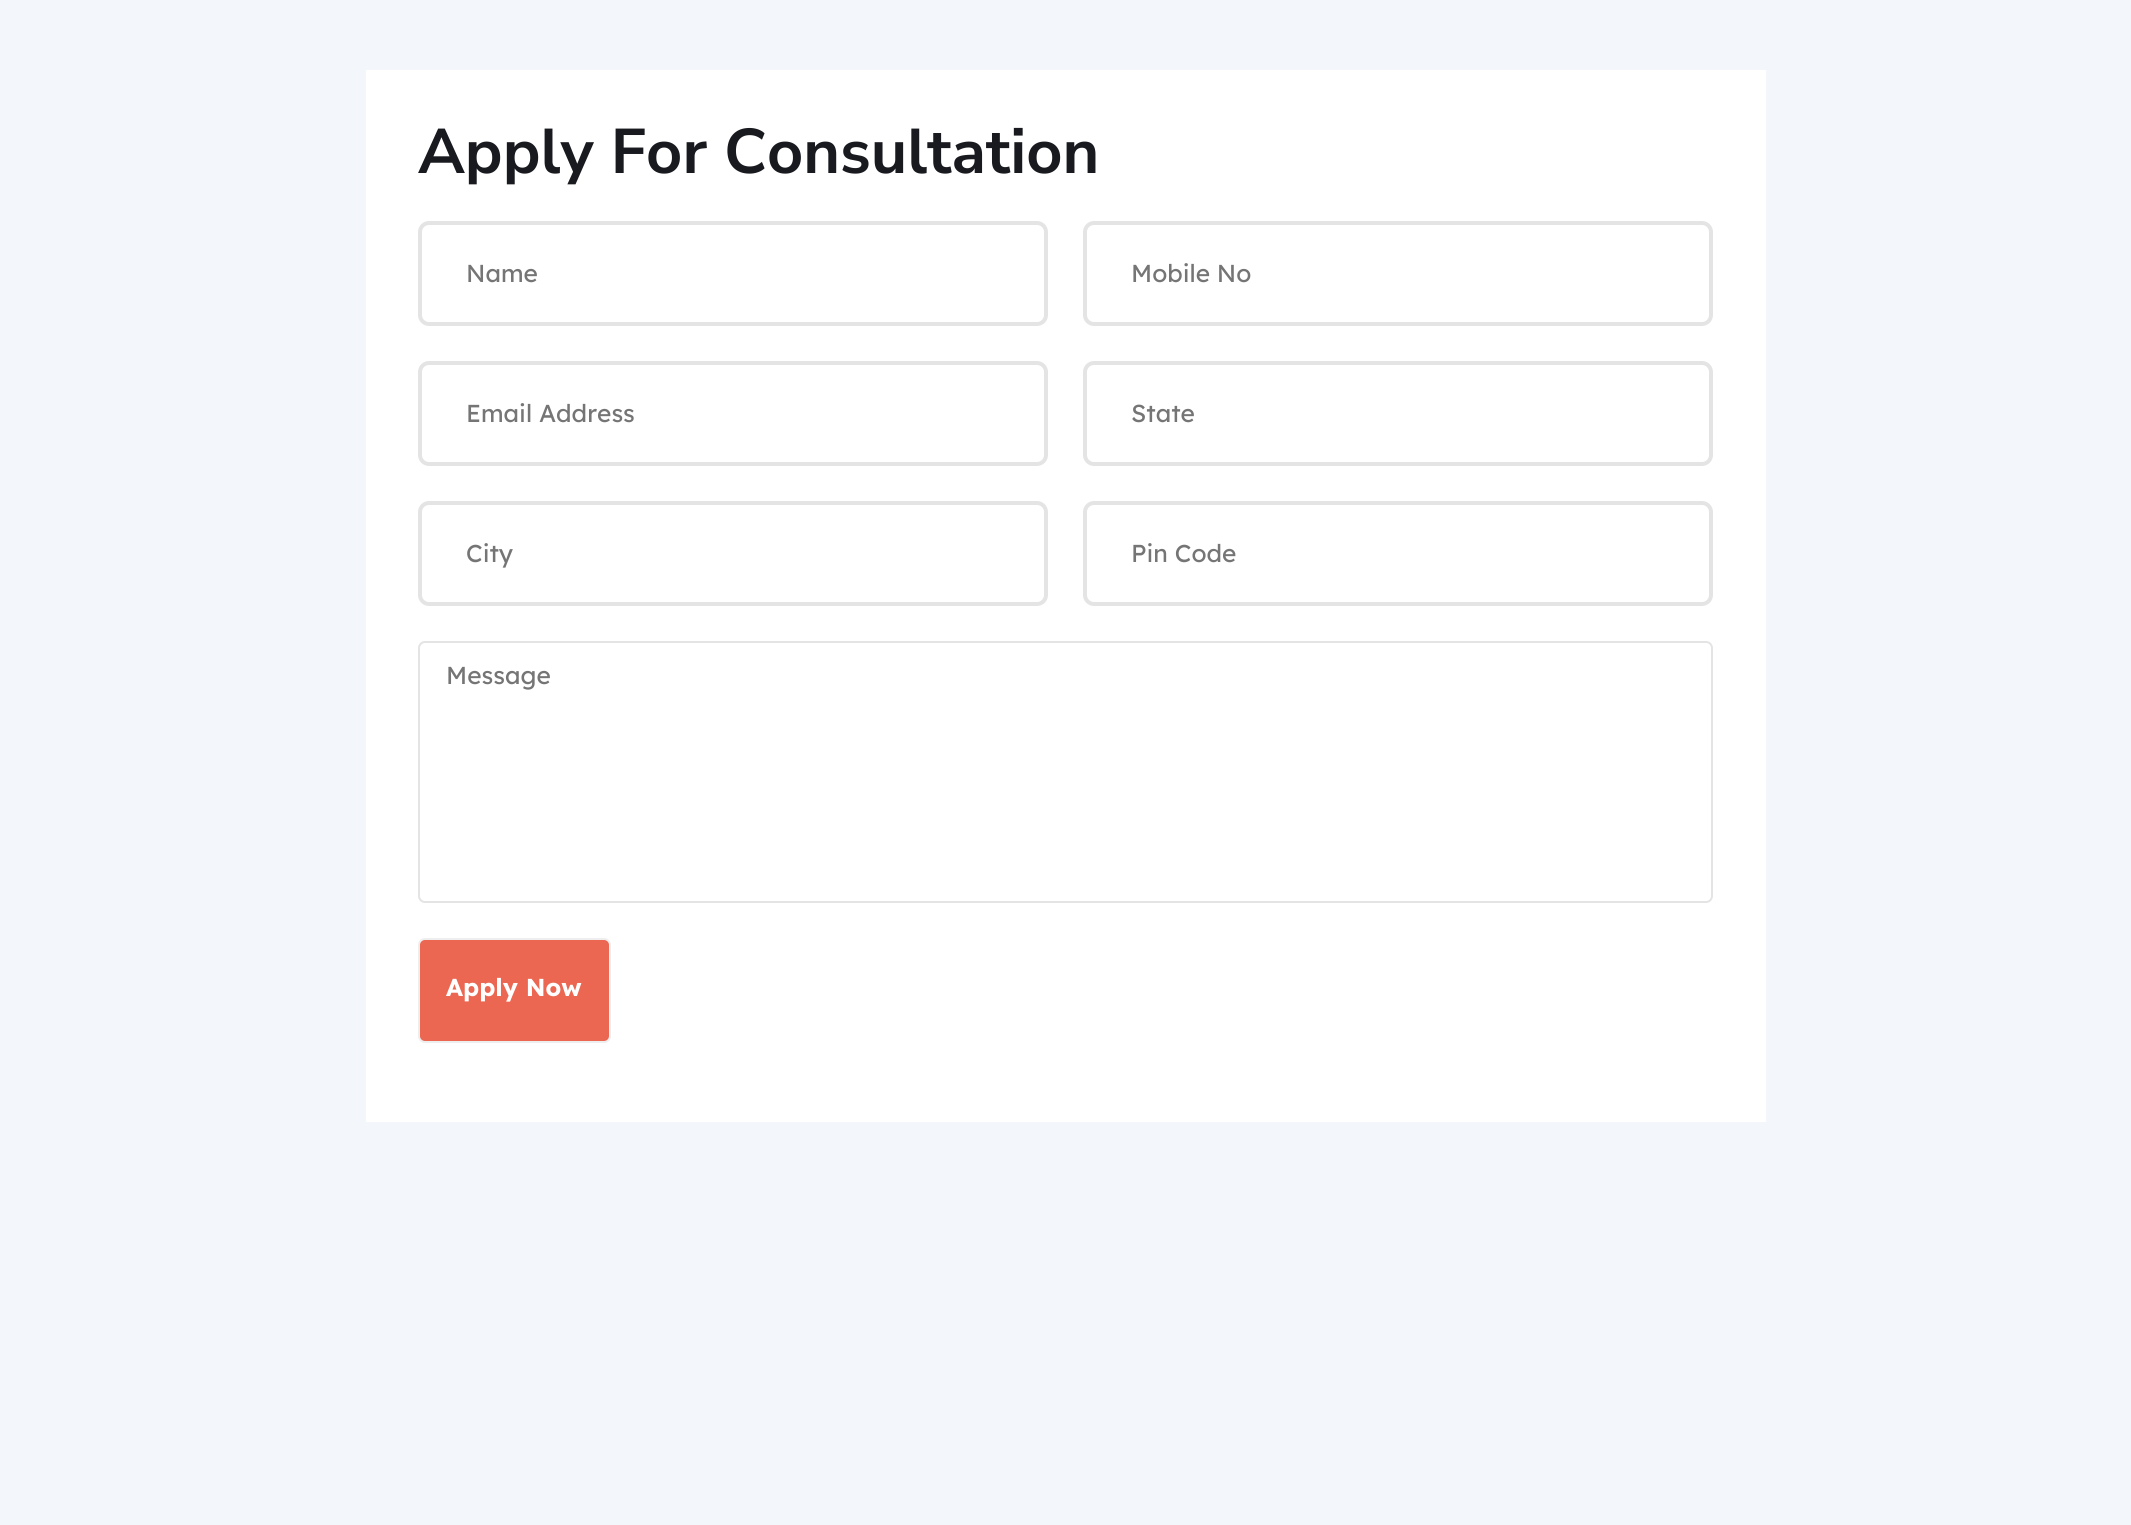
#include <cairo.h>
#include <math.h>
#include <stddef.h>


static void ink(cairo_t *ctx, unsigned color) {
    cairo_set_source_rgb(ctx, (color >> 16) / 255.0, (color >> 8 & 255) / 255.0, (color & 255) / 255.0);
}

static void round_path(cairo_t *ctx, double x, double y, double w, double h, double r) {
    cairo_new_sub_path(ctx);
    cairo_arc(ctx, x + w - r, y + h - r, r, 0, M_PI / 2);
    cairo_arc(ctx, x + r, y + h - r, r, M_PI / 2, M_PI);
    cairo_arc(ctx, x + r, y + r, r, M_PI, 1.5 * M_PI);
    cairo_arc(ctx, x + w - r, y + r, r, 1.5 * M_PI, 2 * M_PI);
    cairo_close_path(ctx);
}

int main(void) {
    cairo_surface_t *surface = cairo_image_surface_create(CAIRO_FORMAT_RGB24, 2131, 1525);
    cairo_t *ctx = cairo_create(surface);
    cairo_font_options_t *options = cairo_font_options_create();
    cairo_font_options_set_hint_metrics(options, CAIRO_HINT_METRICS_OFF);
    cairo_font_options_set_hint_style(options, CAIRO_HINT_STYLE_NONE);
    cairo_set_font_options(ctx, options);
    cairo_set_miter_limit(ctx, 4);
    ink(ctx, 0xF3F6FB);
    cairo_paint(ctx);
    ink(ctx, 0xFFFFFF);
    cairo_rectangle(ctx, 366, 70, 1400, 1052);
    cairo_fill(ctx);
    cairo_select_font_face(ctx, "Nunito Sans", CAIRO_FONT_SLANT_NORMAL, CAIRO_FONT_WEIGHT_BOLD);
    cairo_set_font_size(ctx, 63);
    ink(ctx, 0x191A1F);
    cairo_move_to(ctx, 418, 173);
    cairo_show_text(ctx, "Apply For Consultation");
    round_path(ctx, 420, 223, 626, 101, 9);
    ink(ctx, 0xE4E4E4);
    cairo_set_line_width(ctx, 4);
    cairo_stroke(ctx);
    cairo_select_font_face(ctx, "Lexend Deca", CAIRO_FONT_SLANT_NORMAL, CAIRO_FONT_WEIGHT_NORMAL);
    cairo_set_font_size(ctx, 24.5);
    ink(ctx, 0x757575);
    cairo_move_to(ctx, 466, 282);
    cairo_show_text(ctx, "Name");
    round_path(ctx, 420, 363, 626, 101, 9);
    ink(ctx, 0xE4E4E4);
    cairo_stroke(ctx);
    ink(ctx, 0x757575);
    cairo_move_to(ctx, 466, 422);
    cairo_show_text(ctx, "Email Address");
    round_path(ctx, 420, 503, 626, 101, 9);
    ink(ctx, 0xE4E4E4);
    cairo_stroke(ctx);
    ink(ctx, 0x757575);
    cairo_move_to(ctx, 466, 562);
    cairo_show_text(ctx, "City");
    round_path(ctx, 1085, 223, 626, 101, 9);
    ink(ctx, 0xE4E4E4);
    cairo_stroke(ctx);
    ink(ctx, 0x757575);
    cairo_move_to(ctx, 1131, 282);
    cairo_show_text(ctx, "Mobile No");
    round_path(ctx, 1085, 363, 626, 101, 9);
    ink(ctx, 0xE4E4E4);
    cairo_stroke(ctx);
    ink(ctx, 0x757575);
    cairo_move_to(ctx, 1131, 422);
    cairo_show_text(ctx, "State");
    round_path(ctx, 1085, 503, 626, 101, 9);
    ink(ctx, 0xE4E4E4);
    cairo_stroke(ctx);
    ink(ctx, 0x757575);
    cairo_move_to(ctx, 1131, 562);
    cairo_show_text(ctx, "Pin Code");
    round_path(ctx, 419, 642, 1293, 260, 6);
    ink(ctx, 0xE4E4E4);
    cairo_set_line_width(ctx, 2);
    cairo_stroke(ctx);
    ink(ctx, 0x757575);
    cairo_move_to(ctx, 446, 684);
    cairo_show_text(ctx, "Message");
    ink(ctx, 0xEB6752);
    round_path(ctx, 419, 939, 191, 103, 6);
    cairo_fill_preserve(ctx);
    ink(ctx, 0xEEEEEE);
    cairo_stroke(ctx);
    cairo_select_font_face(ctx, "Lexend Deca", CAIRO_FONT_SLANT_NORMAL, CAIRO_FONT_WEIGHT_BOLD);
    ink(ctx, 0xFFFFFF);
    cairo_move_to(ctx, 446, 996);
    cairo_show_text(ctx, "Apply Now");
    cairo_surface_write_to_png(surface, "image.png");
    cairo_font_options_destroy(options);
    cairo_destroy(ctx);
    cairo_surface_destroy(surface);
    return 0;
}
